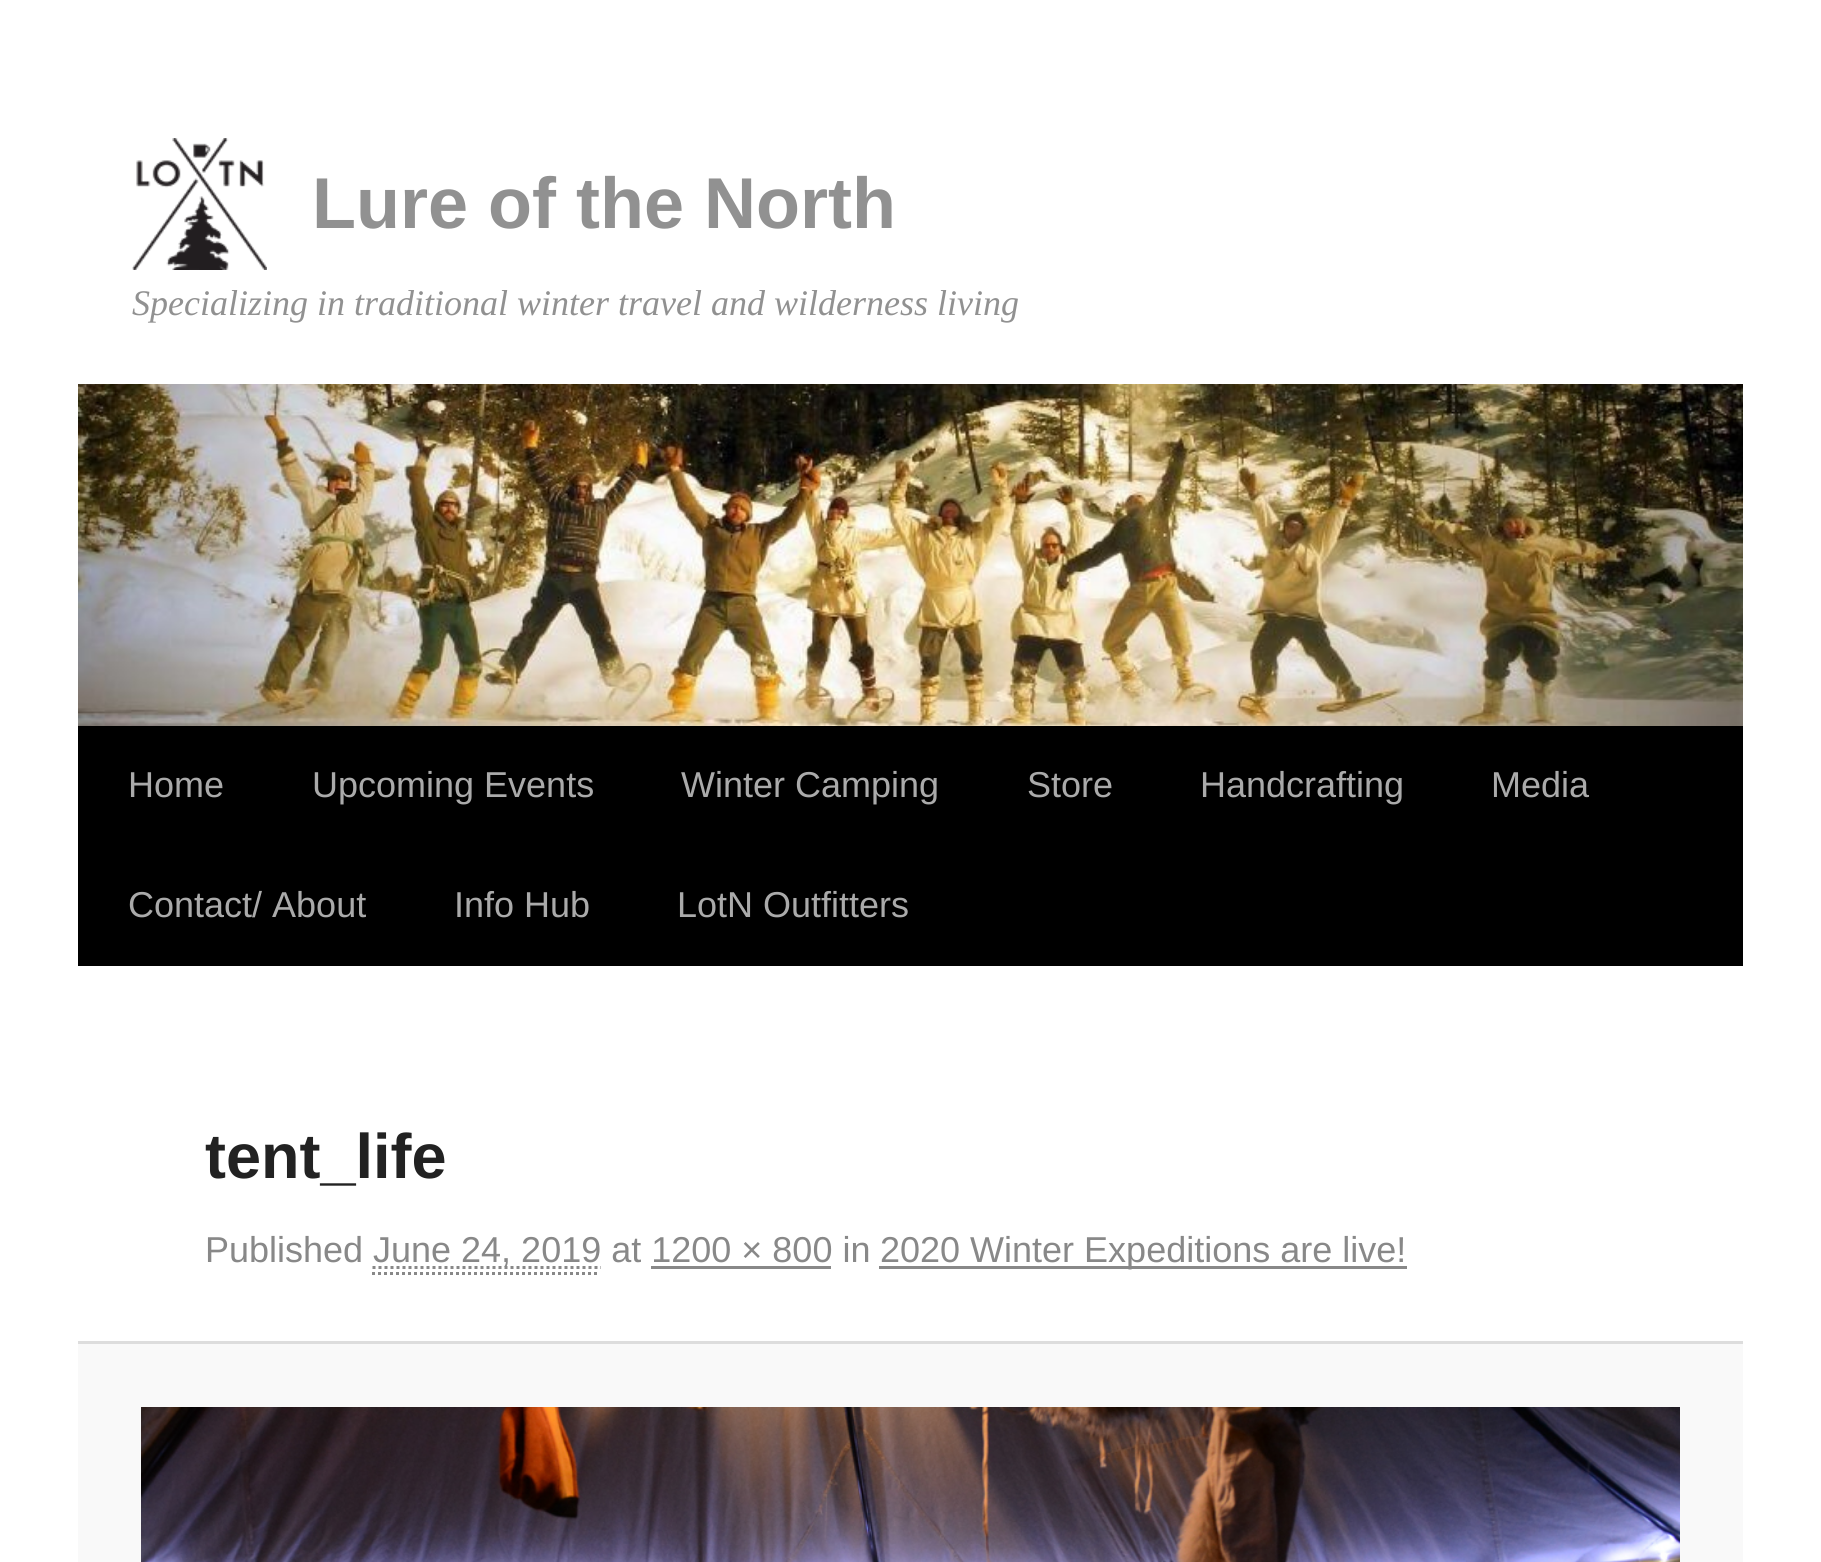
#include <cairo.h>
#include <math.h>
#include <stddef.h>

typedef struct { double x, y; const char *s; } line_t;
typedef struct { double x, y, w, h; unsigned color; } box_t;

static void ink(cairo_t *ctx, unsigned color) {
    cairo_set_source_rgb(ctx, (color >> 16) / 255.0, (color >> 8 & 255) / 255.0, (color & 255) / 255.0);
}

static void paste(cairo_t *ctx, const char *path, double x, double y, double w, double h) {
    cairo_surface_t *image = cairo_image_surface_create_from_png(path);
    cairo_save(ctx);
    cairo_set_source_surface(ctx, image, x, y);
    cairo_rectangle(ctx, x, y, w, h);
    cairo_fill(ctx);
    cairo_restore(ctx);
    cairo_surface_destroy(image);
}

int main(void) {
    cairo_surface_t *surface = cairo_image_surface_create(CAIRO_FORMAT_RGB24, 1821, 1562);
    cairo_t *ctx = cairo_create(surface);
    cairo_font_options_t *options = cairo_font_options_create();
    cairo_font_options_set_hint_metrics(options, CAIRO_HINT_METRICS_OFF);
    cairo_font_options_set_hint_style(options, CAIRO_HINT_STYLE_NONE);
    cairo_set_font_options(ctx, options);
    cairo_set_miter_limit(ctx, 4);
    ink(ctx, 0xFFFFFF);
    cairo_paint(ctx);
    paste(ctx, "media/1.png", 132, 138, 135, 132);
    cairo_select_font_face(ctx, "Liberation Sans", CAIRO_FONT_SLANT_NORMAL, CAIRO_FONT_WEIGHT_BOLD);
    cairo_set_font_size(ctx, 72);
    ink(ctx, 0x919191);
    cairo_move_to(ctx, 312, 228);
    cairo_show_text(ctx, "Lure of the North");
    cairo_select_font_face(ctx, "Liberation Serif", CAIRO_FONT_SLANT_ITALIC, CAIRO_FONT_WEIGHT_NORMAL);
    cairo_set_font_size(ctx, 36);
    cairo_move_to(ctx, 132, 315);
    cairo_show_text(ctx, "Specializing in traditional winter travel and wilderness living");
    paste(ctx, "media/2.png", 78, 384, 1665, 342);
    ink(ctx, 0x000000);
    cairo_rectangle(ctx, 78, 726, 1665, 240);
    cairo_fill(ctx);
    cairo_select_font_face(ctx, "Liberation Sans", CAIRO_FONT_SLANT_NORMAL, CAIRO_FONT_WEIGHT_NORMAL);
    ink(ctx, 0xAAAAAA);
    {
        static const line_t items[] = {
            {128, 797, "Home"},
            {312, 797, "Upcoming Events"},
            {681, 797, "Winter Camping"},
            {1027, 797, "Store"},
            {1200, 797, "Handcrafting"},
            {1491, 797, "Media"},
            {128, 917, "Contact/ About"},
            {454, 917, "Info Hub"},
            {677, 917, "LotN Outfitters"},
        };
        for (size_t i = 0; i < sizeof items / sizeof *items; i++) {
            cairo_move_to(ctx, items[i].x, items[i].y);
            cairo_show_text(ctx, items[i].s);
        }
    }
    cairo_select_font_face(ctx, "Liberation Sans", CAIRO_FONT_SLANT_NORMAL, CAIRO_FONT_WEIGHT_BOLD);
    cairo_set_font_size(ctx, 63);
    ink(ctx, 0x222222);
    cairo_move_to(ctx, 205, 1178);
    cairo_show_text(ctx, "tent_life");
    cairo_select_font_face(ctx, "Liberation Sans", CAIRO_FONT_SLANT_NORMAL, CAIRO_FONT_WEIGHT_NORMAL);
    cairo_set_font_size(ctx, 36);
    ink(ctx, 0x888888);
    cairo_move_to(ctx, 205, 1262);
    cairo_show_text(ctx, "Published");
    cairo_new_path(ctx);
    cairo_move_to(ctx, 372.5, 1267.5);
    cairo_line_to(ctx, 601, 1267.5);
    cairo_set_line_width(ctx, 3);
    cairo_set_dash(ctx, (double[]){3, 3}, 2, 0);
    cairo_stroke(ctx);
    cairo_move_to(ctx, 373, 1262);
    cairo_show_text(ctx, "June 24, 2019 at 1200 × 800 in");
    cairo_new_path(ctx);
    cairo_move_to(ctx, 372, 1273.5);
    cairo_line_to(ctx, 600, 1273.5);
    cairo_stroke(ctx);
    cairo_rectangle(ctx, 879, 1266, 528, 3);
    cairo_fill(ctx);
    cairo_move_to(ctx, 880, 1262);
    cairo_show_text(ctx, "2020 Winter Expeditions are live!");
    {
        static const box_t items[] = {
            {651, 1266, 180, 3, 0x888888},
            {78, 1344, 1665, 218, 0xF9F9F9},
            {78, 1341, 1665, 3, 0xDDDDDD},
        };
        for (size_t i = 0; i < sizeof items / sizeof *items; i++) {
            ink(ctx, items[i].color);
            cairo_rectangle(ctx, items[i].x, items[i].y, items[i].w, items[i].h);
            cairo_fill(ctx);
        }
    }
    paste(ctx, "media/3.png", 141, 1407, 1539, 155);
    cairo_surface_write_to_png(surface, "image.png");
    cairo_font_options_destroy(options);
    cairo_destroy(ctx);
    cairo_surface_destroy(surface);
    return 0;
}
